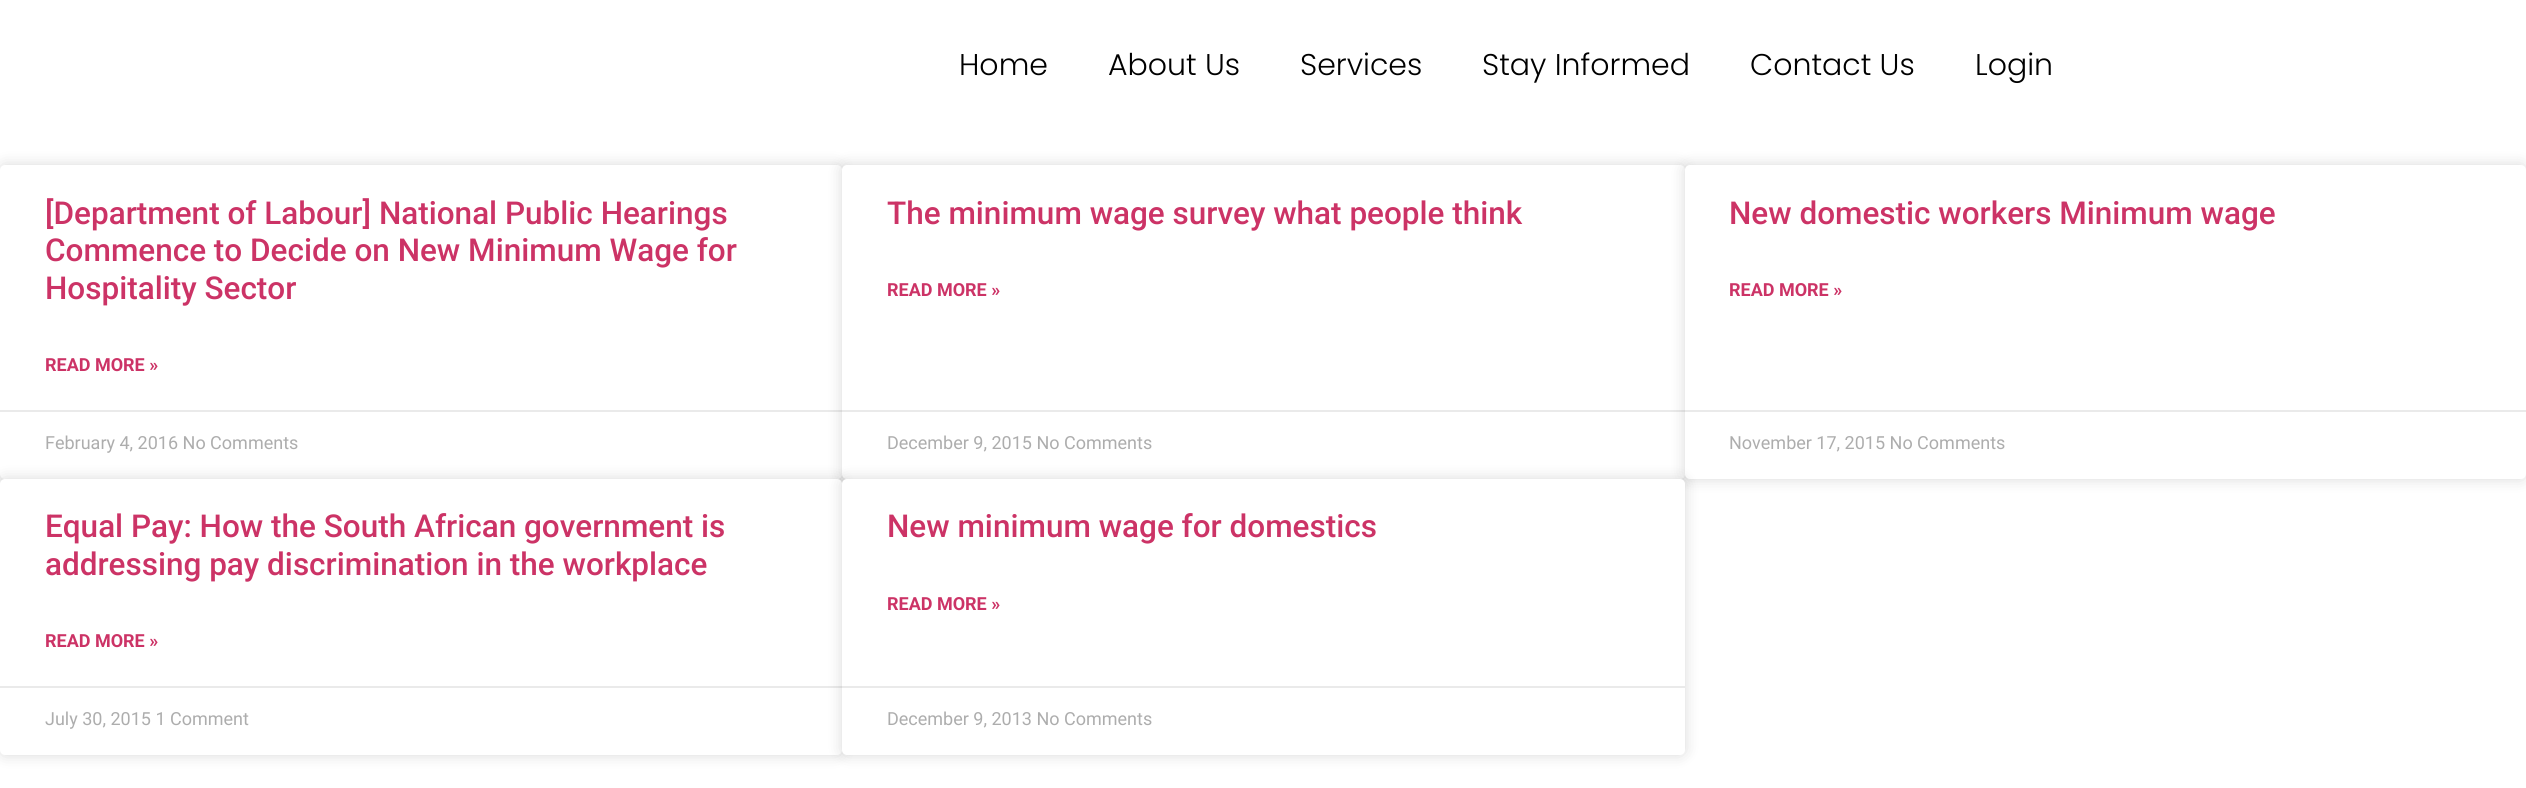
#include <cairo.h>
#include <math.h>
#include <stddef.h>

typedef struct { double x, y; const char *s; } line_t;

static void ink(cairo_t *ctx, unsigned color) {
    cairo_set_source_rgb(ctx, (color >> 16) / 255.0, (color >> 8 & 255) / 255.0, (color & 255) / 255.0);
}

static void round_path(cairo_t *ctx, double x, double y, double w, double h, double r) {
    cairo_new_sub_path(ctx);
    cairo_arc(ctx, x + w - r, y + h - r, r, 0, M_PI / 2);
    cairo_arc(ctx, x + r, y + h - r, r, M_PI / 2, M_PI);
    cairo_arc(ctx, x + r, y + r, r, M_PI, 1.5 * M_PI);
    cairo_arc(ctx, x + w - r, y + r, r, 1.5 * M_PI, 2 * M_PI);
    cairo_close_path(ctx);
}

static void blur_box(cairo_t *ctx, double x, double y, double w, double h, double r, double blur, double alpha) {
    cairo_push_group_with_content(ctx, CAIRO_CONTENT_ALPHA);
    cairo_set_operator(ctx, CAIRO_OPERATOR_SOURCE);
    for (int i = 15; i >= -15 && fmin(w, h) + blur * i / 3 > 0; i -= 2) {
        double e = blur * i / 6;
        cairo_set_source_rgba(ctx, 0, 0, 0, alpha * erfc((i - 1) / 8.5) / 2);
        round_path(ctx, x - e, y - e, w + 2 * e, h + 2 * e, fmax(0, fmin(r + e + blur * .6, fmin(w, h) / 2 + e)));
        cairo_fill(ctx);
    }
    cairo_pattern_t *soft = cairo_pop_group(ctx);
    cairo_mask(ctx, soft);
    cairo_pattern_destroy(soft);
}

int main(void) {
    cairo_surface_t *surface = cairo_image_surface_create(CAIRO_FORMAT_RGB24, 2526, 788);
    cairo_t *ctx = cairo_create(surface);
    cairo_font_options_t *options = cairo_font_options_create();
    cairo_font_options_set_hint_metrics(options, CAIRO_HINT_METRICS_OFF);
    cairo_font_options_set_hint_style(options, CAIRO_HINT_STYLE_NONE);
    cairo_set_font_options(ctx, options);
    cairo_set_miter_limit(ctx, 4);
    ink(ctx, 0xFFFFFF);
    cairo_paint(ctx);
    cairo_select_font_face(ctx, "Poppins Light", CAIRO_FONT_SLANT_NORMAL, CAIRO_FONT_WEIGHT_NORMAL);
    cairo_set_font_size(ctx, 30);
    ink(ctx, 0x000000);
    {
        static const line_t items[] = {
            {959, 75, "Home"},
            {1108, 75, "About Us"},
            {1300, 75, "Services"},
            {1482, 75, "Stay Informed"},
            {1750, 75, "Contact Us"},
            {1975, 75, "Login"},
        };
        for (size_t i = 0; i < sizeof items / sizeof *items; i++) {
            cairo_move_to(ctx, items[i].x, items[i].y);
            cairo_show_text(ctx, items[i].s);
        }
    }
    ink(ctx, 0x000000);
    blur_box(ctx, 0, 165, 842, 314, 5, 7.5, 0.15);
    ink(ctx, 0xFFFFFF);
    round_path(ctx, 0, 165, 842, 314, 5);
    cairo_fill(ctx);
    cairo_select_font_face(ctx, "Roboto Medium", CAIRO_FONT_SLANT_NORMAL, CAIRO_FONT_WEIGHT_NORMAL);
    cairo_set_font_size(ctx, 31.5);
    ink(ctx, 0xCC3366);
    {
        static const line_t items[] = {
            {45, 224, "[Department of Labour] National Public Hearings"},
            {45, 261, "Commence to Decide on New Minimum Wage for"},
            {45, 299, "Hospitality Sector"},
        };
        for (size_t i = 0; i < sizeof items / sizeof *items; i++) {
            cairo_move_to(ctx, items[i].x, items[i].y);
            cairo_show_text(ctx, items[i].s);
        }
    }
    cairo_select_font_face(ctx, "Roboto", CAIRO_FONT_SLANT_NORMAL, CAIRO_FONT_WEIGHT_BOLD);
    cairo_set_font_size(ctx, 18);
    cairo_move_to(ctx, 45, 371);
    cairo_show_text(ctx, "READ MORE »");
    ink(ctx, 0xEAEAEA);
    cairo_rectangle(ctx, 0, 410, 842, 2);
    cairo_fill(ctx);
    cairo_select_font_face(ctx, "Roboto", CAIRO_FONT_SLANT_NORMAL, CAIRO_FONT_WEIGHT_NORMAL);
    ink(ctx, 0xADADAD);
    cairo_move_to(ctx, 45, 449);
    cairo_show_text(ctx, "February 4, 2016 No Comments");
    ink(ctx, 0x000000);
    blur_box(ctx, 842, 165, 843, 314, 5, 7.5, 0.15);
    ink(ctx, 0xFFFFFF);
    round_path(ctx, 842, 165, 843, 314, 5);
    cairo_fill(ctx);
    cairo_select_font_face(ctx, "Roboto Medium", CAIRO_FONT_SLANT_NORMAL, CAIRO_FONT_WEIGHT_NORMAL);
    cairo_set_font_size(ctx, 31.5);
    ink(ctx, 0xCC3366);
    cairo_move_to(ctx, 887, 224);
    cairo_show_text(ctx, "The minimum wage survey what people think");
    cairo_select_font_face(ctx, "Roboto", CAIRO_FONT_SLANT_NORMAL, CAIRO_FONT_WEIGHT_BOLD);
    cairo_set_font_size(ctx, 18);
    cairo_move_to(ctx, 887, 296);
    cairo_show_text(ctx, "READ MORE »");
    ink(ctx, 0xEAEAEA);
    cairo_rectangle(ctx, 842, 410, 843, 2);
    cairo_fill(ctx);
    cairo_select_font_face(ctx, "Roboto", CAIRO_FONT_SLANT_NORMAL, CAIRO_FONT_WEIGHT_NORMAL);
    ink(ctx, 0xADADAD);
    cairo_move_to(ctx, 887, 449);
    cairo_show_text(ctx, "December 9, 2015 No Comments");
    ink(ctx, 0x000000);
    blur_box(ctx, 1685, 165, 841, 314, 5, 7.5, 0.15);
    ink(ctx, 0xFFFFFF);
    round_path(ctx, 1685, 165, 841, 314, 5);
    cairo_fill(ctx);
    cairo_select_font_face(ctx, "Roboto Medium", CAIRO_FONT_SLANT_NORMAL, CAIRO_FONT_WEIGHT_NORMAL);
    cairo_set_font_size(ctx, 31.5);
    ink(ctx, 0xCC3366);
    cairo_move_to(ctx, 1729, 224);
    cairo_show_text(ctx, "New domestic workers Minimum wage");
    cairo_select_font_face(ctx, "Roboto", CAIRO_FONT_SLANT_NORMAL, CAIRO_FONT_WEIGHT_BOLD);
    cairo_set_font_size(ctx, 18);
    cairo_move_to(ctx, 1729, 296);
    cairo_show_text(ctx, "READ MORE »");
    ink(ctx, 0xEAEAEA);
    cairo_rectangle(ctx, 1685, 410, 841, 2);
    cairo_fill(ctx);
    cairo_select_font_face(ctx, "Roboto", CAIRO_FONT_SLANT_NORMAL, CAIRO_FONT_WEIGHT_NORMAL);
    ink(ctx, 0xADADAD);
    cairo_move_to(ctx, 1729, 449);
    cairo_show_text(ctx, "November 17, 2015 No Comments");
    ink(ctx, 0x000000);
    blur_box(ctx, 0, 479, 842, 276, 5, 7.5, 0.15);
    ink(ctx, 0xFFFFFF);
    round_path(ctx, 0, 479, 842, 276, 5);
    cairo_fill(ctx);
    cairo_select_font_face(ctx, "Roboto Medium", CAIRO_FONT_SLANT_NORMAL, CAIRO_FONT_WEIGHT_NORMAL);
    cairo_set_font_size(ctx, 31.5);
    ink(ctx, 0xCC3366);
    cairo_move_to(ctx, 45, 537);
    cairo_show_text(ctx, "Equal Pay: How the South African government is");
    cairo_move_to(ctx, 45, 575);
    cairo_show_text(ctx, "addressing pay discrimination in the workplace");
    cairo_select_font_face(ctx, "Roboto", CAIRO_FONT_SLANT_NORMAL, CAIRO_FONT_WEIGHT_BOLD);
    cairo_set_font_size(ctx, 18);
    cairo_move_to(ctx, 45, 647);
    cairo_show_text(ctx, "READ MORE »");
    ink(ctx, 0xEAEAEA);
    cairo_rectangle(ctx, 0, 686, 842, 2);
    cairo_fill(ctx);
    cairo_select_font_face(ctx, "Roboto", CAIRO_FONT_SLANT_NORMAL, CAIRO_FONT_WEIGHT_NORMAL);
    ink(ctx, 0xADADAD);
    cairo_move_to(ctx, 45, 725);
    cairo_show_text(ctx, "July 30, 2015 1 Comment");
    ink(ctx, 0x000000);
    blur_box(ctx, 842, 479, 843, 276, 5, 7.5, 0.15);
    ink(ctx, 0xFFFFFF);
    round_path(ctx, 842, 479, 843, 276, 5);
    cairo_fill(ctx);
    cairo_select_font_face(ctx, "Roboto Medium", CAIRO_FONT_SLANT_NORMAL, CAIRO_FONT_WEIGHT_NORMAL);
    cairo_set_font_size(ctx, 31.5);
    ink(ctx, 0xCC3366);
    cairo_move_to(ctx, 887, 537);
    cairo_show_text(ctx, "New minimum wage for domestics");
    cairo_select_font_face(ctx, "Roboto", CAIRO_FONT_SLANT_NORMAL, CAIRO_FONT_WEIGHT_BOLD);
    cairo_set_font_size(ctx, 18);
    cairo_move_to(ctx, 887, 610);
    cairo_show_text(ctx, "READ MORE »");
    ink(ctx, 0xEAEAEA);
    cairo_rectangle(ctx, 842, 686, 843, 2);
    cairo_fill(ctx);
    cairo_select_font_face(ctx, "Roboto", CAIRO_FONT_SLANT_NORMAL, CAIRO_FONT_WEIGHT_NORMAL);
    ink(ctx, 0xADADAD);
    cairo_move_to(ctx, 887, 725);
    cairo_show_text(ctx, "December 9, 2013 No Comments");
    cairo_surface_write_to_png(surface, "image.png");
    cairo_font_options_destroy(options);
    cairo_destroy(ctx);
    cairo_surface_destroy(surface);
    return 0;
}
